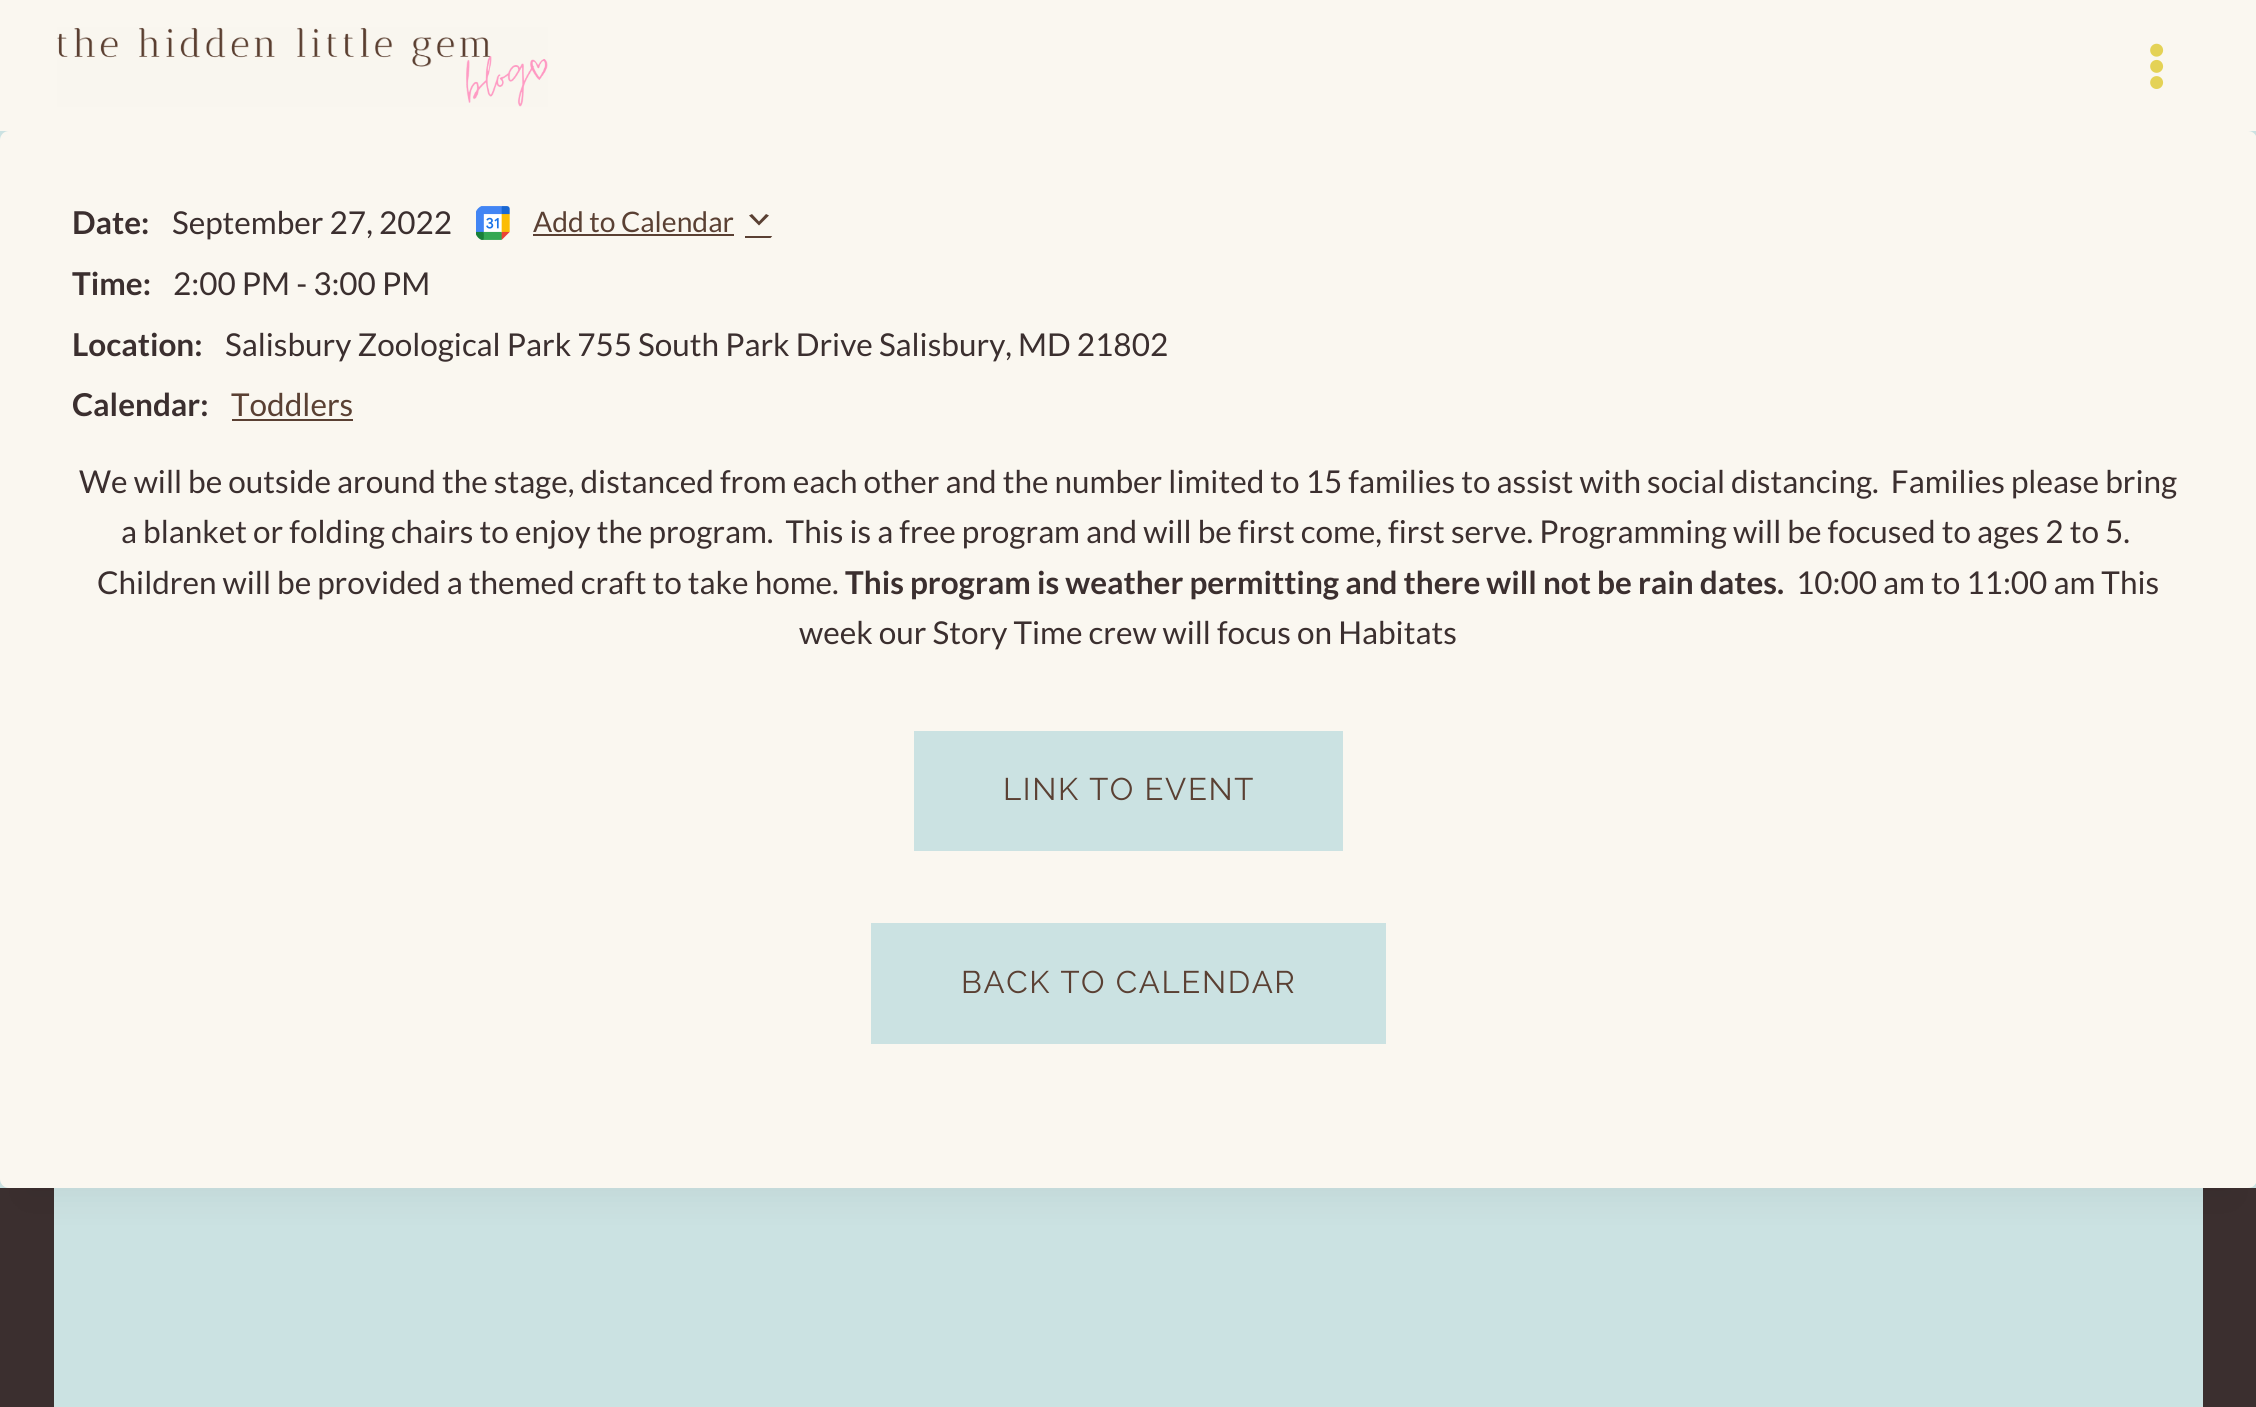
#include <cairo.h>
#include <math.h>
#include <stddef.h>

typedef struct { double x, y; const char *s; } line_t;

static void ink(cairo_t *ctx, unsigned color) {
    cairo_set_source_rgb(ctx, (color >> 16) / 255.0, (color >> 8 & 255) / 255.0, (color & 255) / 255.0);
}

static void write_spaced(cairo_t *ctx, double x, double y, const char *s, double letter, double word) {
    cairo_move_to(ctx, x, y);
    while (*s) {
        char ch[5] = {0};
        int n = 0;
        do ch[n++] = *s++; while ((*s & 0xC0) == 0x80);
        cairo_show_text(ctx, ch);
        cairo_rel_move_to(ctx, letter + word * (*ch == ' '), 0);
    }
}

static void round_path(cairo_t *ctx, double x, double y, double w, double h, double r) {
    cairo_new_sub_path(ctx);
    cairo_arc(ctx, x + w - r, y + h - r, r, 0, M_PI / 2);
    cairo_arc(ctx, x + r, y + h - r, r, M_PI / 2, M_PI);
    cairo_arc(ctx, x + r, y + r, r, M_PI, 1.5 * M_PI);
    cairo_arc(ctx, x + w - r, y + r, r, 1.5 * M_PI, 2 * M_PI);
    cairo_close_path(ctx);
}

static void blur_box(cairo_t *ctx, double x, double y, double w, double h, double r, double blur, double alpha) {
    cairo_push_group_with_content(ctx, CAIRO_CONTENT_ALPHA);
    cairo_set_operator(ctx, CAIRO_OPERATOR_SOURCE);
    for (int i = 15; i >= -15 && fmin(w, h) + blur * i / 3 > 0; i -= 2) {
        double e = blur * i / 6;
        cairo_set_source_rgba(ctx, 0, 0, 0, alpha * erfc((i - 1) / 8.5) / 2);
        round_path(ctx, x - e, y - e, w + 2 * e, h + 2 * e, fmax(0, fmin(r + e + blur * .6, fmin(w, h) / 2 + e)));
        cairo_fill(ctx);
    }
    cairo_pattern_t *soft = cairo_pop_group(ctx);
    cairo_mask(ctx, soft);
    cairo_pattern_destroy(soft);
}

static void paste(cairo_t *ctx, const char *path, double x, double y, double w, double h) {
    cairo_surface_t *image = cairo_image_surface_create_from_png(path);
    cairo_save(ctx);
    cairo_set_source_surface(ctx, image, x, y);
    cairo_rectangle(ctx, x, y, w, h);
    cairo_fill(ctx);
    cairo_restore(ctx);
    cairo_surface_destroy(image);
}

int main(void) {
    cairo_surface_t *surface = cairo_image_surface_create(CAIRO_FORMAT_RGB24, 2256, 1407);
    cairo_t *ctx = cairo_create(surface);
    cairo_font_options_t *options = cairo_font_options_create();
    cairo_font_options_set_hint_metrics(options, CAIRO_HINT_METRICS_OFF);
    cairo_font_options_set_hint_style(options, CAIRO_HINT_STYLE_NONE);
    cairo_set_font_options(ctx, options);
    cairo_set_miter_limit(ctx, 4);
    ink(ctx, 0xCBE2E2);
    cairo_paint(ctx);
    ink(ctx, 0xFAF7F0);
    cairo_rectangle(ctx, 0, 0, 2256, 131);
    cairo_fill(ctx);
    paste(ctx, "media/1.png", 57, 27, 491, 80);
    paste(ctx, "media/2.png", 2150, 43, 14, 46);
    ink(ctx, 0x3B2F2F);
    cairo_rectangle(ctx, 0, 1188, 2256, 219);
    cairo_fill(ctx);
    ink(ctx, 0xCBE2E2);
    cairo_rectangle(ctx, 54, 1188, 2149, 219);
    cairo_fill(ctx);
    ink(ctx, 0x000000);
    blur_box(ctx, 23, 187, 2211, 1012, 0, 17, 0.05);
    ink(ctx, 0xFAF7F0);
    round_path(ctx, 0, 131, 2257, 1057, 9);
    cairo_fill(ctx);
    cairo_select_font_face(ctx, "Lato", CAIRO_FONT_SLANT_NORMAL, CAIRO_FONT_WEIGHT_BOLD);
    cairo_set_font_size(ctx, 31.5);
    ink(ctx, 0x3B2F2F);
    cairo_move_to(ctx, 72, 234);
    cairo_show_text(ctx, "Date:");
    cairo_select_font_face(ctx, "Lato", CAIRO_FONT_SLANT_NORMAL, CAIRO_FONT_WEIGHT_NORMAL);
    cairo_move_to(ctx, 172, 234);
    cairo_show_text(ctx, "September 27, 2022");
    paste(ctx, "media/3.png", 476, 206, 34, 34);
    cairo_set_font_size(ctx, 28.25);
    ink(ctx, 0x5A4033);
    cairo_move_to(ctx, 533, 232);
    cairo_show_text(ctx, "Add to Calendar");
    cairo_rectangle(ctx, 533, 234, 201, 2);
    cairo_fill(ctx);
    cairo_save(ctx);
    round_path(ctx, 475, 205, 299, 36, 11);
    cairo_clip(ctx);
    cairo_rectangle(ctx, 745, 236, 29, 2);
    cairo_fill(ctx);
    cairo_restore(ctx);
    cairo_new_path(ctx);
    cairo_move_to(ctx, 752, 214);
    cairo_line_to(ctx, 759, 221.5);
    cairo_line_to(ctx, 766, 214);
    cairo_line_to(ctx, 769, 215.5);
    cairo_line_to(ctx, 759, 225.5);
    cairo_line_to(ctx, 749, 215.5);
    cairo_close_path(ctx);
    cairo_fill(ctx);
    cairo_select_font_face(ctx, "Lato", CAIRO_FONT_SLANT_NORMAL, CAIRO_FONT_WEIGHT_BOLD);
    cairo_set_font_size(ctx, 31.5);
    ink(ctx, 0x3B2F2F);
    cairo_move_to(ctx, 72, 295);
    cairo_show_text(ctx, "Time:");
    cairo_select_font_face(ctx, "Lato", CAIRO_FONT_SLANT_NORMAL, CAIRO_FONT_WEIGHT_NORMAL);
    cairo_move_to(ctx, 173, 295);
    cairo_show_text(ctx, "2:00 PM - 3:00 PM");
    cairo_select_font_face(ctx, "Lato", CAIRO_FONT_SLANT_NORMAL, CAIRO_FONT_WEIGHT_BOLD);
    cairo_move_to(ctx, 72, 356);
    cairo_show_text(ctx, "Location:");
    cairo_select_font_face(ctx, "Lato", CAIRO_FONT_SLANT_NORMAL, CAIRO_FONT_WEIGHT_NORMAL);
    cairo_move_to(ctx, 225, 356);
    cairo_show_text(ctx, "Salisbury Zoological Park 755 South Park Drive Salisbury, MD 21802");
    cairo_select_font_face(ctx, "Lato", CAIRO_FONT_SLANT_NORMAL, CAIRO_FONT_WEIGHT_BOLD);
    cairo_move_to(ctx, 72, 416);
    cairo_show_text(ctx, "Calendar:");
    cairo_select_font_face(ctx, "Lato", CAIRO_FONT_SLANT_NORMAL, CAIRO_FONT_WEIGHT_NORMAL);
    ink(ctx, 0x5A4033);
    cairo_move_to(ctx, 231, 416);
    cairo_show_text(ctx, "Toddlers");
    cairo_rectangle(ctx, 232, 419, 121, 2);
    cairo_fill(ctx);
    ink(ctx, 0x3B2F2F);
    {
        static const line_t items[] = {
            {79, 493, "We will be outside around the stage, distanced from each other and the number limited to 15 families to assist with social distancing.  Families please bring"},
            {121, 543, "a blanket or folding chairs to enjoy the program.  This is a free program and will be first come, first serve. Programming will be focused to ages 2 to 5."},
            {97, 594, "Children will be provided a themed craft to take home."},
        };
        for (size_t i = 0; i < sizeof items / sizeof *items; i++) {
            cairo_move_to(ctx, items[i].x, items[i].y);
            cairo_show_text(ctx, items[i].s);
        }
    }
    cairo_select_font_face(ctx, "Lato", CAIRO_FONT_SLANT_NORMAL, CAIRO_FONT_WEIGHT_BOLD);
    cairo_move_to(ctx, 845, 594);
    cairo_show_text(ctx, "This program is weather permitting and there will not be rain dates.");
    cairo_select_font_face(ctx, "Lato", CAIRO_FONT_SLANT_NORMAL, CAIRO_FONT_WEIGHT_NORMAL);
    cairo_move_to(ctx, 1796, 594);
    cairo_show_text(ctx, "10:00 am to 11:00 am This");
    cairo_move_to(ctx, 799, 644);
    cairo_show_text(ctx, "week our Story Time crew will focus on Habitats");
    ink(ctx, 0xCBE2E2);
    cairo_rectangle(ctx, 914, 731, 429, 120);
    cairo_fill(ctx);
    cairo_select_font_face(ctx, "Raleway", CAIRO_FONT_SLANT_NORMAL, CAIRO_FONT_WEIGHT_NORMAL);
    cairo_set_font_size(ctx, 31.25);
    ink(ctx, 0x5A4033);
    write_spaced(ctx, 1003, 800, "LINK TO EVENT", 1.6, 0);
    ink(ctx, 0xCBE2E2);
    cairo_rectangle(ctx, 871, 923, 515, 121);
    cairo_fill(ctx);
    ink(ctx, 0x5A4033);
    write_spaced(ctx, 961, 993, "BACK TO CALENDAR", 1.6, 0);
    cairo_surface_write_to_png(surface, "image.png");
    cairo_font_options_destroy(options);
    cairo_destroy(ctx);
    cairo_surface_destroy(surface);
    return 0;
}
